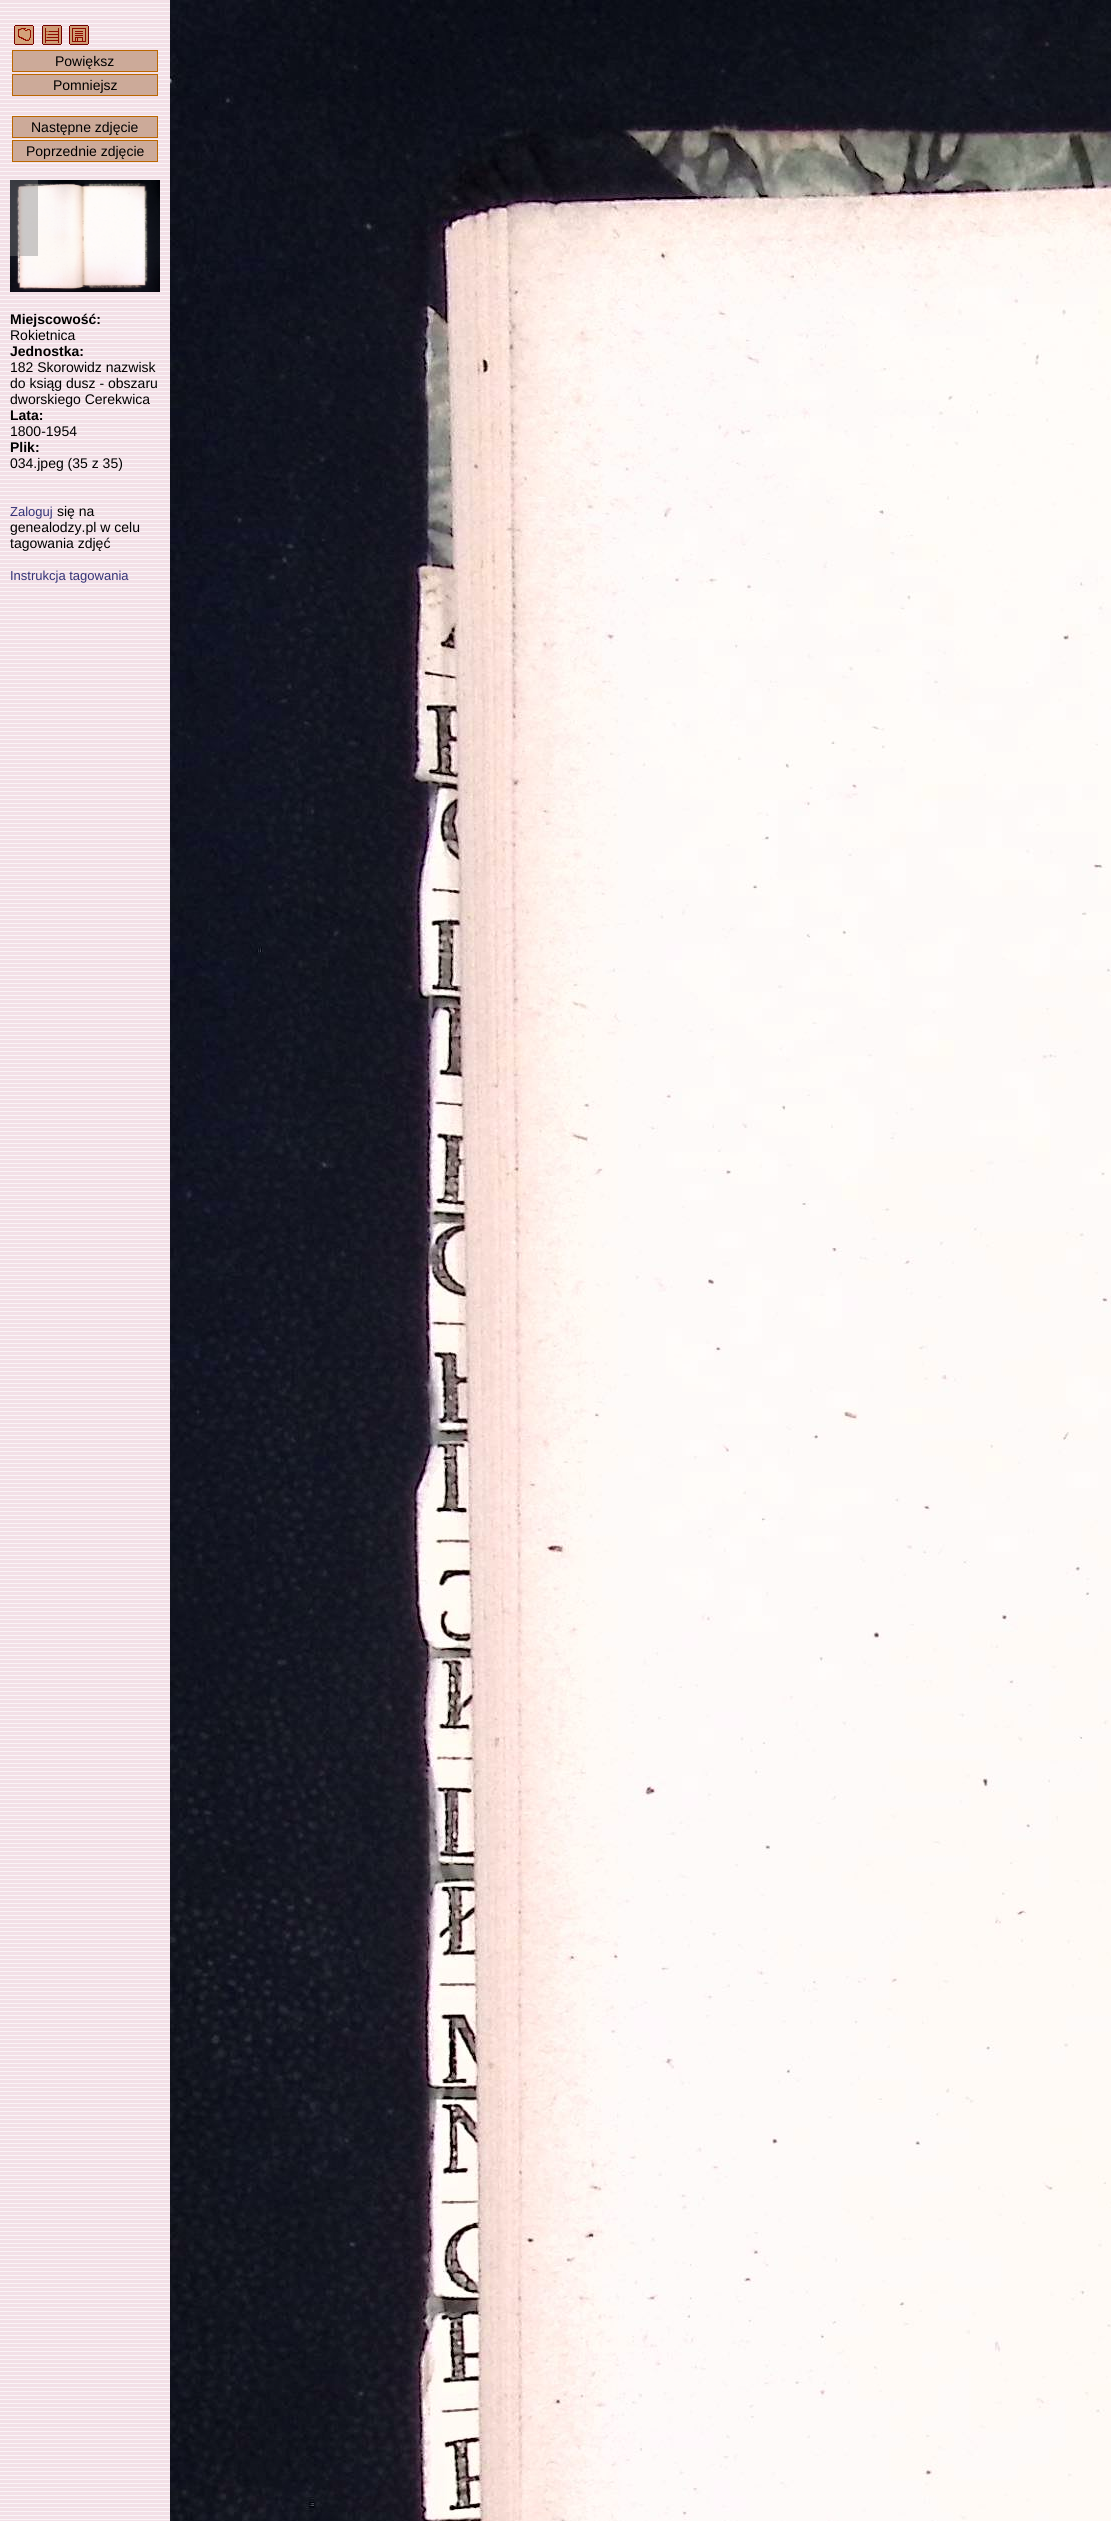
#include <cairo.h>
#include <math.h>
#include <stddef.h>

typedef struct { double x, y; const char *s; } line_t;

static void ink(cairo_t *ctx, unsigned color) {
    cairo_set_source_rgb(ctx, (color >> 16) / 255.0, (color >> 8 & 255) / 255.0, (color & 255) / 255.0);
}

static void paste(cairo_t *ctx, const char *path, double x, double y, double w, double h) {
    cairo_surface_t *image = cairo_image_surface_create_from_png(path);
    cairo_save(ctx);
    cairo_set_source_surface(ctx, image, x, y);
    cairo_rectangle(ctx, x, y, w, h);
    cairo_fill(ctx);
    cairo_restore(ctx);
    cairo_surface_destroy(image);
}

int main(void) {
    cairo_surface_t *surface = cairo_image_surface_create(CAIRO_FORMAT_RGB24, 1111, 2521);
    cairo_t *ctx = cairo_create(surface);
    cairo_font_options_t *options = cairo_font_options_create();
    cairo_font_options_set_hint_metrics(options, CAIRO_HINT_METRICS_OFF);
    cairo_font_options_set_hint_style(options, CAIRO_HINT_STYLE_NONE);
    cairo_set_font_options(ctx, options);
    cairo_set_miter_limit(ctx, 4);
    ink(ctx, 0xFFFFFF);
    cairo_paint(ctx);
    paste(ctx, "media/1.png", 0, 0, 170, 2521);
    paste(ctx, "media/2.png", 14, 25, 20, 20);
    paste(ctx, "media/3.png", 42, 25, 20, 20);
    paste(ctx, "media/4.png", 69, 25, 20, 20);
    ink(ctx, 0xCCAA99);
    cairo_rectangle(ctx, 12.5, 50.5, 145, 21);
    cairo_fill_preserve(ctx);
    ink(ctx, 0xBB6600);
    cairo_set_line_width(ctx, 1);
    cairo_stroke(ctx);
    cairo_select_font_face(ctx, "Liberation Sans", CAIRO_FONT_SLANT_NORMAL, CAIRO_FONT_WEIGHT_NORMAL);
    cairo_set_font_size(ctx, 14);
    ink(ctx, 0x000000);
    cairo_move_to(ctx, 55, 66);
    cairo_show_text(ctx, "Powiększ");
    ink(ctx, 0xCCAA99);
    cairo_rectangle(ctx, 12.5, 74.5, 145, 21);
    cairo_fill_preserve(ctx);
    ink(ctx, 0xBB6600);
    cairo_stroke(ctx);
    ink(ctx, 0x000000);
    cairo_move_to(ctx, 53, 90);
    cairo_show_text(ctx, "Pomniejsz");
    ink(ctx, 0xCCAA99);
    cairo_rectangle(ctx, 12.5, 116.5, 145, 21);
    cairo_fill_preserve(ctx);
    ink(ctx, 0xBB6600);
    cairo_stroke(ctx);
    ink(ctx, 0x000000);
    cairo_move_to(ctx, 31, 132);
    cairo_show_text(ctx, "Następne zdjęcie");
    ink(ctx, 0xCCAA99);
    cairo_rectangle(ctx, 12.5, 140.5, 145, 21);
    cairo_fill_preserve(ctx);
    ink(ctx, 0xBB6600);
    cairo_stroke(ctx);
    ink(ctx, 0x000000);
    cairo_move_to(ctx, 26, 156);
    cairo_show_text(ctx, "Poprzednie zdjęcie");
    paste(ctx, "media/5.png", 10, 180, 150, 112);
    cairo_select_font_face(ctx, "Liberation Sans", CAIRO_FONT_SLANT_NORMAL, CAIRO_FONT_WEIGHT_BOLD);
    cairo_move_to(ctx, 10, 324);
    cairo_show_text(ctx, "Miejscowość:");
    cairo_select_font_face(ctx, "Liberation Sans", CAIRO_FONT_SLANT_NORMAL, CAIRO_FONT_WEIGHT_NORMAL);
    cairo_move_to(ctx, 10, 340);
    cairo_show_text(ctx, "Rokietnica");
    cairo_select_font_face(ctx, "Liberation Sans", CAIRO_FONT_SLANT_NORMAL, CAIRO_FONT_WEIGHT_BOLD);
    cairo_move_to(ctx, 10, 356);
    cairo_show_text(ctx, "Jednostka:");
    cairo_select_font_face(ctx, "Liberation Sans", CAIRO_FONT_SLANT_NORMAL, CAIRO_FONT_WEIGHT_NORMAL);
    {
        static const line_t items[] = {
            {10, 372, "182 Skorowidz nazwisk"},
            {10, 388, "do ksiąg dusz - obszaru"},
            {10, 404, "dworskiego Cerekwica"},
        };
        for (size_t i = 0; i < sizeof items / sizeof *items; i++) {
            cairo_move_to(ctx, items[i].x, items[i].y);
            cairo_show_text(ctx, items[i].s);
        }
    }
    cairo_select_font_face(ctx, "Liberation Sans", CAIRO_FONT_SLANT_NORMAL, CAIRO_FONT_WEIGHT_BOLD);
    cairo_move_to(ctx, 10, 420);
    cairo_show_text(ctx, "Lata:");
    cairo_select_font_face(ctx, "Liberation Sans", CAIRO_FONT_SLANT_NORMAL, CAIRO_FONT_WEIGHT_NORMAL);
    cairo_move_to(ctx, 10, 436);
    cairo_show_text(ctx, "1800-1954");
    cairo_select_font_face(ctx, "Liberation Sans", CAIRO_FONT_SLANT_NORMAL, CAIRO_FONT_WEIGHT_BOLD);
    cairo_move_to(ctx, 10, 452);
    cairo_show_text(ctx, "Plik:");
    cairo_select_font_face(ctx, "Liberation Sans", CAIRO_FONT_SLANT_NORMAL, CAIRO_FONT_WEIGHT_NORMAL);
    cairo_move_to(ctx, 10, 468);
    cairo_show_text(ctx, "034.jpeg (35 z 35)");
    cairo_set_font_size(ctx, 13);
    ink(ctx, 0x333377);
    cairo_move_to(ctx, 10, 516);
    cairo_show_text(ctx, "Zaloguj");
    cairo_set_font_size(ctx, 14);
    ink(ctx, 0x000000);
    {
        static const line_t items[] = {
            {57, 516, "się na"},
            {10, 532, "genealodzy.pl w celu"},
            {10, 548, "tagowania zdjęć"},
        };
        for (size_t i = 0; i < sizeof items / sizeof *items; i++) {
            cairo_move_to(ctx, items[i].x, items[i].y);
            cairo_show_text(ctx, items[i].s);
        }
    }
    cairo_set_font_size(ctx, 13);
    ink(ctx, 0x333377);
    cairo_move_to(ctx, 10, 580);
    cairo_show_text(ctx, "Instrukcja tagowania");
    paste(ctx, "media/6.png", 170, 0, 941, 2521);
    cairo_surface_write_to_png(surface, "image.png");
    cairo_font_options_destroy(options);
    cairo_destroy(ctx);
    cairo_surface_destroy(surface);
    return 0;
}
